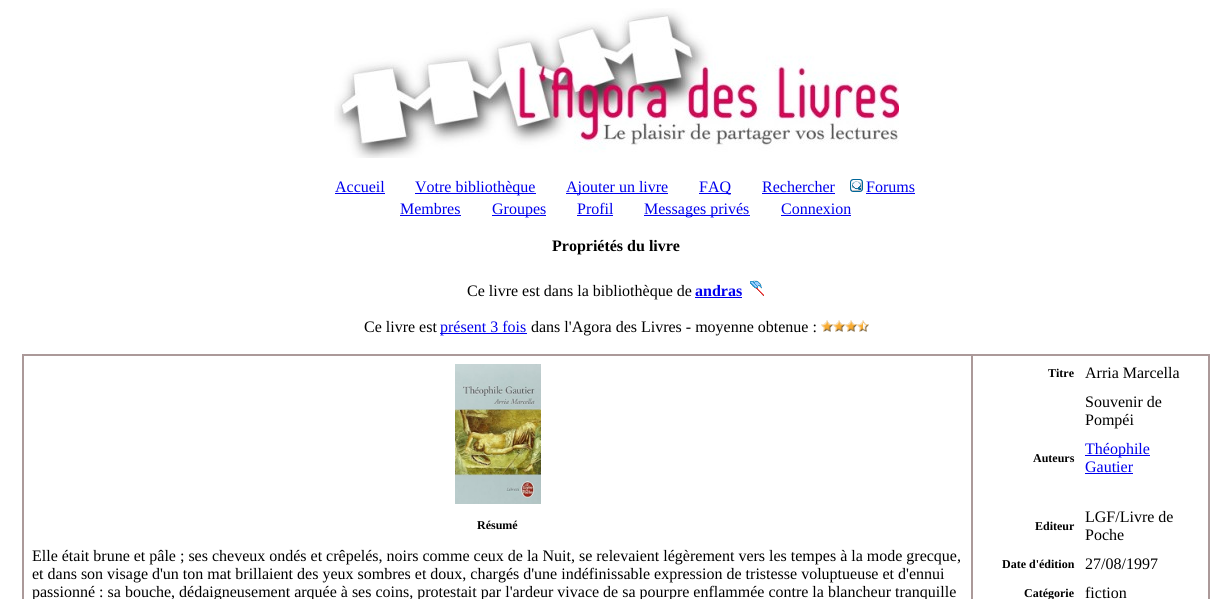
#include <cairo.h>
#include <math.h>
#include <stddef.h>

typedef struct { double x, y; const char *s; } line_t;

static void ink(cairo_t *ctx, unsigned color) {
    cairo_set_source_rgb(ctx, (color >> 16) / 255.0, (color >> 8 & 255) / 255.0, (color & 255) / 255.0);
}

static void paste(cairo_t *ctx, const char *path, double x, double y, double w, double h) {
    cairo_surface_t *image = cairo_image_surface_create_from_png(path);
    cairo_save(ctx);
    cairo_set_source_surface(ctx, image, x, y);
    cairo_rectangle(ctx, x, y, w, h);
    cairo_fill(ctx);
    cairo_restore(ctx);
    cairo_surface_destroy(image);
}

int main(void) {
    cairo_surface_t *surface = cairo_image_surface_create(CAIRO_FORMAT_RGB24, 1232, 599);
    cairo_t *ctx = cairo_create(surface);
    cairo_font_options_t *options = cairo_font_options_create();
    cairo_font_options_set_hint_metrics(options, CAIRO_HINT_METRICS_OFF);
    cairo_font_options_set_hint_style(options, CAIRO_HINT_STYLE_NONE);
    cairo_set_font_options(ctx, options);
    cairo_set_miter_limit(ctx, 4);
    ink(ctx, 0xFFFFFF);
    cairo_paint(ctx);
    paste(ctx, "media/1.png", 334, 8, 565, 150);
    cairo_select_font_face(ctx, "Liberation Serif", CAIRO_FONT_SLANT_NORMAL, CAIRO_FONT_WEIGHT_NORMAL);
    cairo_set_font_size(ctx, 16);
    ink(ctx, 0x0000EE);
    cairo_move_to(ctx, 335, 192);
    cairo_show_text(ctx, "Accueil");
    cairo_rectangle(ctx, 335, 193, 50, 1);
    cairo_fill(ctx);
    cairo_rectangle(ctx, 415, 193, 121, 1);
    cairo_fill(ctx);
    cairo_move_to(ctx, 415, 192);
    cairo_show_text(ctx, "Votre bibliothèque");
    cairo_rectangle(ctx, 566, 193, 102, 1);
    cairo_fill(ctx);
    cairo_move_to(ctx, 566, 192);
    cairo_show_text(ctx, "Ajouter un livre");
    cairo_rectangle(ctx, 699, 193, 32, 1);
    cairo_fill(ctx);
    cairo_move_to(ctx, 699, 192);
    cairo_show_text(ctx, "FAQ");
    cairo_move_to(ctx, 762, 192);
    cairo_show_text(ctx, "Rechercher");
    cairo_rectangle(ctx, 762, 193, 73, 1);
    cairo_fill(ctx);
    paste(ctx, "media/2.png", 850, 179, 13, 13);
    cairo_move_to(ctx, 866, 192);
    cairo_show_text(ctx, "Forums");
    cairo_rectangle(ctx, 866, 193, 49, 1);
    cairo_fill(ctx);
    cairo_move_to(ctx, 400, 214);
    cairo_show_text(ctx, "Membres");
    cairo_rectangle(ctx, 400, 215, 61, 1);
    cairo_fill(ctx);
    cairo_rectangle(ctx, 492, 215, 54, 1);
    cairo_fill(ctx);
    cairo_move_to(ctx, 492, 214);
    cairo_show_text(ctx, "Groupes");
    cairo_move_to(ctx, 577, 214);
    cairo_show_text(ctx, "Profil");
    cairo_rectangle(ctx, 577, 215, 36, 1);
    cairo_fill(ctx);
    cairo_rectangle(ctx, 644, 215, 106, 1);
    cairo_fill(ctx);
    cairo_move_to(ctx, 644, 214);
    cairo_show_text(ctx, "Messages privés");
    cairo_move_to(ctx, 781, 214);
    cairo_show_text(ctx, "Connexion");
    cairo_rectangle(ctx, 781, 215, 70, 1);
    cairo_fill(ctx);
    cairo_select_font_face(ctx, "Liberation Serif", CAIRO_FONT_SLANT_NORMAL, CAIRO_FONT_WEIGHT_BOLD);
    ink(ctx, 0x000000);
    cairo_move_to(ctx, 552, 251);
    cairo_show_text(ctx, "Propriétés du livre");
    cairo_select_font_face(ctx, "Liberation Serif", CAIRO_FONT_SLANT_NORMAL, CAIRO_FONT_WEIGHT_NORMAL);
    cairo_move_to(ctx, 467, 296);
    cairo_show_text(ctx, "Ce livre est dans la bibliothèque de");
    cairo_select_font_face(ctx, "Liberation Serif", CAIRO_FONT_SLANT_NORMAL, CAIRO_FONT_WEIGHT_BOLD);
    ink(ctx, 0x0000EE);
    cairo_move_to(ctx, 695, 296);
    cairo_show_text(ctx, "andras");
    cairo_rectangle(ctx, 695, 297, 47, 1);
    cairo_fill(ctx);
    paste(ctx, "media/3.png", 750, 280, 14, 16);
    cairo_select_font_face(ctx, "Liberation Serif", CAIRO_FONT_SLANT_NORMAL, CAIRO_FONT_WEIGHT_NORMAL);
    ink(ctx, 0x000000);
    cairo_move_to(ctx, 364, 332);
    cairo_show_text(ctx, "Ce livre est");
    ink(ctx, 0x0000EE);
    cairo_rectangle(ctx, 440, 333, 87, 1);
    cairo_fill(ctx);
    cairo_move_to(ctx, 440, 332);
    cairo_show_text(ctx, "présent 3 fois");
    ink(ctx, 0x000000);
    cairo_move_to(ctx, 531, 332);
    cairo_show_text(ctx, "dans l'Agora des Livres - moyenne obtenue :");
    paste(ctx, "media/4.png", 821, 320, 12, 12);
    paste(ctx, "media/4.png", 833, 320, 12, 12);
    paste(ctx, "media/5.png", 845, 320, 12, 12);
    paste(ctx, "media/6.png", 857, 320, 12, 12);
    cairo_rectangle(ctx, 22.5, 354.5, 1187, 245);
    ink(ctx, 0xAB9999);
    cairo_set_line_width(ctx, 1);
    cairo_stroke(ctx);
    cairo_rectangle(ctx, 23.5, 355.5, 948, 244);
    cairo_stroke(ctx);
    paste(ctx, "media/7.png", 455, 364, 86, 140);
    cairo_select_font_face(ctx, "Liberation Serif", CAIRO_FONT_SLANT_NORMAL, CAIRO_FONT_WEIGHT_BOLD);
    cairo_set_font_size(ctx, 12);
    ink(ctx, 0x000000);
    cairo_move_to(ctx, 477, 529);
    cairo_show_text(ctx, "Résumé");
    cairo_select_font_face(ctx, "Liberation Serif", CAIRO_FONT_SLANT_NORMAL, CAIRO_FONT_WEIGHT_NORMAL);
    cairo_set_font_size(ctx, 16);
    {
        static const line_t items[] = {
            {32, 561, "Elle était brune et pâle ; ses cheveux ondés et crêpelés, noirs comme ceux de la Nuit, se relevaient légèrement vers les tempes à la mode grecque,"},
            {32, 579, "et dans son visage d'un ton mat brillaient des yeux sombres et doux, chargés d'une indéfinissable expression de tristesse voluptueuse et d'ennui"},
            {32, 597, "passionné : sa bouche, dédaigneusement arquée à ses coins, protestait par l'ardeur vivace de sa pourpre enflammée contre la blancheur tranquille"},
        };
        for (size_t i = 0; i < sizeof items / sizeof *items; i++) {
            cairo_move_to(ctx, items[i].x, items[i].y);
            cairo_show_text(ctx, items[i].s);
        }
    }
    cairo_rectangle(ctx, 972.5, 355.5, 236, 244);
    ink(ctx, 0xAB9999);
    cairo_stroke(ctx);
    cairo_select_font_face(ctx, "Liberation Serif", CAIRO_FONT_SLANT_NORMAL, CAIRO_FONT_WEIGHT_BOLD);
    cairo_set_font_size(ctx, 12);
    ink(ctx, 0x000000);
    cairo_move_to(ctx, 1048, 377);
    cairo_show_text(ctx, "Titre");
    cairo_select_font_face(ctx, "Liberation Serif", CAIRO_FONT_SLANT_NORMAL, CAIRO_FONT_WEIGHT_NORMAL);
    cairo_set_font_size(ctx, 16);
    {
        static const line_t items[] = {
            {1085, 378, "Arria Marcella"},
            {1085, 407, "Souvenir de"},
            {1085, 425, "Pompéi"},
        };
        for (size_t i = 0; i < sizeof items / sizeof *items; i++) {
            cairo_move_to(ctx, items[i].x, items[i].y);
            cairo_show_text(ctx, items[i].s);
        }
    }
    cairo_select_font_face(ctx, "Liberation Serif", CAIRO_FONT_SLANT_NORMAL, CAIRO_FONT_WEIGHT_BOLD);
    cairo_set_font_size(ctx, 12);
    cairo_move_to(ctx, 1033, 462);
    cairo_show_text(ctx, "Auteurs");
    ink(ctx, 0x0000EE);
    cairo_rectangle(ctx, 1085, 455, 65, 1);
    cairo_fill(ctx);
    cairo_select_font_face(ctx, "Liberation Serif", CAIRO_FONT_SLANT_NORMAL, CAIRO_FONT_WEIGHT_NORMAL);
    cairo_set_font_size(ctx, 16);
    cairo_move_to(ctx, 1085, 454);
    cairo_show_text(ctx, "Théophile");
    cairo_move_to(ctx, 1085, 472);
    cairo_show_text(ctx, "Gautier");
    cairo_rectangle(ctx, 1085, 473, 48, 1);
    cairo_fill(ctx);
    cairo_select_font_face(ctx, "Liberation Serif", CAIRO_FONT_SLANT_NORMAL, CAIRO_FONT_WEIGHT_BOLD);
    cairo_set_font_size(ctx, 12);
    ink(ctx, 0x000000);
    cairo_move_to(ctx, 1035, 530);
    cairo_show_text(ctx, "Editeur");
    cairo_select_font_face(ctx, "Liberation Serif", CAIRO_FONT_SLANT_NORMAL, CAIRO_FONT_WEIGHT_NORMAL);
    cairo_set_font_size(ctx, 16);
    cairo_move_to(ctx, 1085, 522);
    cairo_show_text(ctx, "LGF/Livre de");
    cairo_move_to(ctx, 1085, 540);
    cairo_show_text(ctx, "Poche");
    cairo_select_font_face(ctx, "Liberation Serif", CAIRO_FONT_SLANT_NORMAL, CAIRO_FONT_WEIGHT_BOLD);
    cairo_set_font_size(ctx, 12);
    cairo_move_to(ctx, 1002, 568);
    cairo_show_text(ctx, "Date d'édition");
    cairo_select_font_face(ctx, "Liberation Serif", CAIRO_FONT_SLANT_NORMAL, CAIRO_FONT_WEIGHT_NORMAL);
    cairo_set_font_size(ctx, 16);
    cairo_move_to(ctx, 1085, 569);
    cairo_show_text(ctx, "27/08/1997");
    cairo_select_font_face(ctx, "Liberation Serif", CAIRO_FONT_SLANT_NORMAL, CAIRO_FONT_WEIGHT_BOLD);
    cairo_set_font_size(ctx, 12);
    cairo_move_to(ctx, 1024, 597);
    cairo_show_text(ctx, "Catégorie");
    cairo_select_font_face(ctx, "Liberation Serif", CAIRO_FONT_SLANT_NORMAL, CAIRO_FONT_WEIGHT_NORMAL);
    cairo_set_font_size(ctx, 16);
    cairo_move_to(ctx, 1085, 598);
    cairo_show_text(ctx, "fiction");
    cairo_surface_write_to_png(surface, "image.png");
    cairo_font_options_destroy(options);
    cairo_destroy(ctx);
    cairo_surface_destroy(surface);
    return 0;
}
